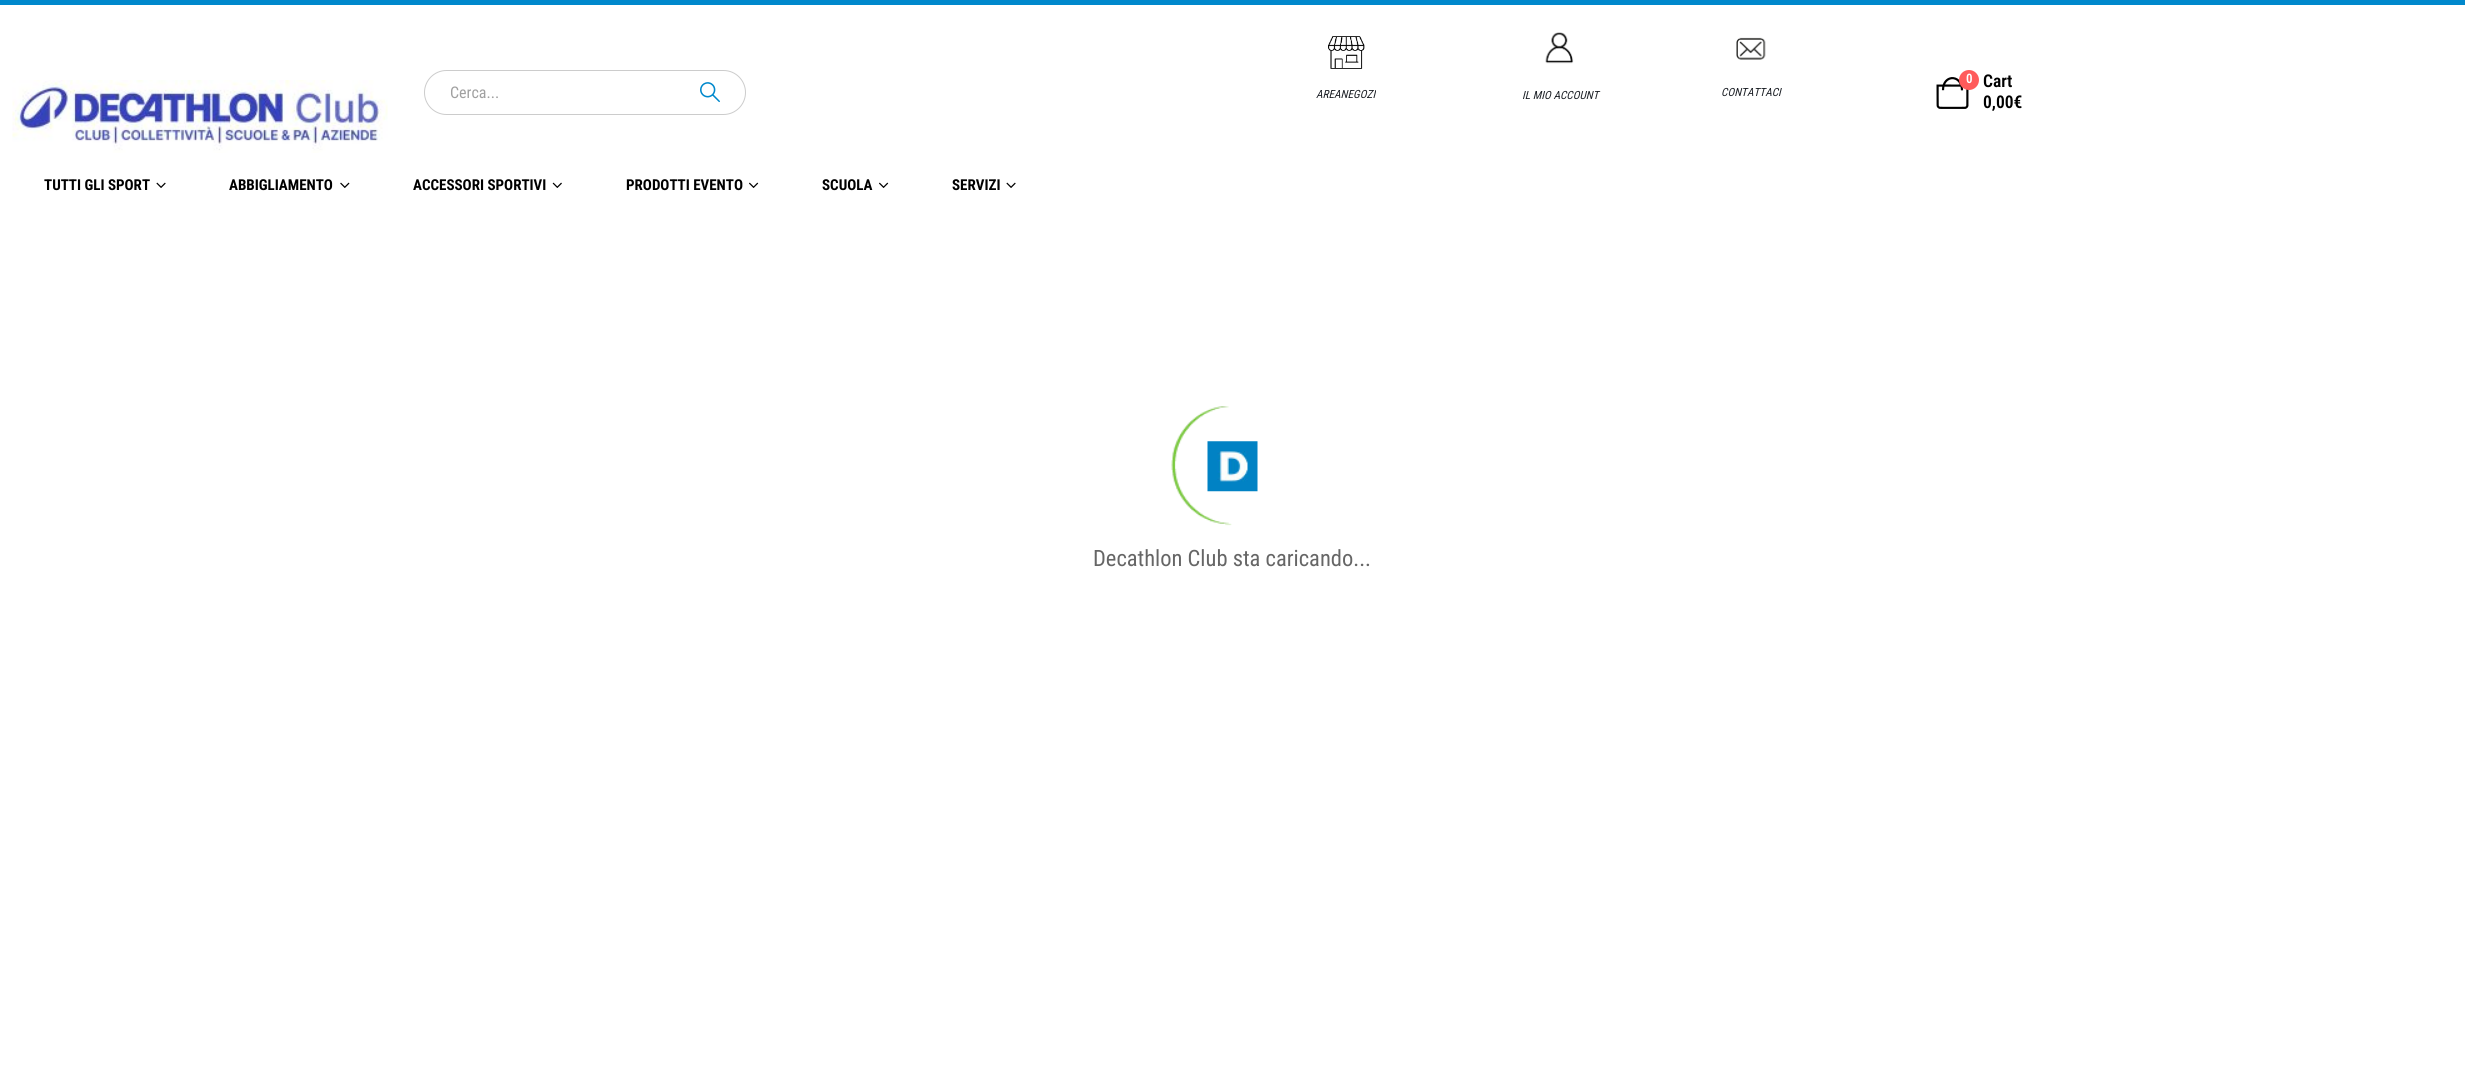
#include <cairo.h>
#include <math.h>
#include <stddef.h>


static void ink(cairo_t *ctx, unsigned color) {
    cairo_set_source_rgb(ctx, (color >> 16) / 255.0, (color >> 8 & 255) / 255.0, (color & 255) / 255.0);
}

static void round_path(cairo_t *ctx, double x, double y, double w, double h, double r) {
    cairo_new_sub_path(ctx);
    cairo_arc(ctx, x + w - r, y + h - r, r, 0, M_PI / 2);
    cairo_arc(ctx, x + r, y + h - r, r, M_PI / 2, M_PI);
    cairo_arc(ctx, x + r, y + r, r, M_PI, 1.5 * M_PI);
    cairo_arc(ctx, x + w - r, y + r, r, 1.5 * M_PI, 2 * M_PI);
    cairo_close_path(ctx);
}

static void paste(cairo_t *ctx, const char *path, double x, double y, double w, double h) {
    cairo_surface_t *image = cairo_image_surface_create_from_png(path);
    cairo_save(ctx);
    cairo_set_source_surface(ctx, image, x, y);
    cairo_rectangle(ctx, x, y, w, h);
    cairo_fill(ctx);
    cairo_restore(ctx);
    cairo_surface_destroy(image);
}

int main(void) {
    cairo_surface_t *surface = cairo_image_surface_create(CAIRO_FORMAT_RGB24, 2465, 1089);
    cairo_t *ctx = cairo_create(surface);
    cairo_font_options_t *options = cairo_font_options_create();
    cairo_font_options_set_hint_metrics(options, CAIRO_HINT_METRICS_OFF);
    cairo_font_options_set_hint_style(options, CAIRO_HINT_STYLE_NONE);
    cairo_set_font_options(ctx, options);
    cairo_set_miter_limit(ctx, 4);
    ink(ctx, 0xFFFFFF);
    cairo_paint(ctx);
    ink(ctx, 0x0088CC);
    cairo_rectangle(ctx, 0, 0, 2465, 5);
    cairo_fill(ctx);
    paste(ctx, "media/1.png", 12, 80, 376, 73);
    round_path(ctx, 424.5, 70.5, 321, 44, 22);
    ink(ctx, 0xCCCCCC);
    cairo_set_line_width(ctx, 1);
    cairo_stroke(ctx);
    cairo_select_font_face(ctx, "Roboto Condensed", CAIRO_FONT_SLANT_NORMAL, CAIRO_FONT_WEIGHT_NORMAL);
    cairo_set_font_size(ctx, 16);
    ink(ctx, 0xA0A0A0);
    cairo_move_to(ctx, 450, 98);
    cairo_show_text(ctx, "Cerca...");
    paste(ctx, "media/2.png", 700, 82, 20, 21);
    paste(ctx, "media/3.png", 1328, 36, 37, 33);
    cairo_select_font_face(ctx, "Roboto Condensed", CAIRO_FONT_SLANT_ITALIC, CAIRO_FONT_WEIGHT_NORMAL);
    cairo_set_font_size(ctx, 11.25);
    ink(ctx, 0x1D2127);
    cairo_move_to(ctx, 1316, 98);
    cairo_show_text(ctx, "AREANEGOZI");
    paste(ctx, "media/4.png", 1545, 32, 29, 32);
    cairo_move_to(ctx, 1522, 99);
    cairo_show_text(ctx, "IL MIO ACCOUNT");
    paste(ctx, "media/5.png", 1736, 37, 30, 23);
    cairo_move_to(ctx, 1721, 96);
    cairo_show_text(ctx, "CONTATTACI");
    paste(ctx, "media/6.png", 1936, 77, 33, 32);
    ink(ctx, 0xFF5B5B);
    cairo_arc(ctx, 1969, 80, 10, 0, 2 * M_PI);
    cairo_fill(ctx);
    cairo_select_font_face(ctx, "Roboto Condensed SemiBold", CAIRO_FONT_SLANT_NORMAL, CAIRO_FONT_WEIGHT_NORMAL);
    cairo_set_font_size(ctx, 13);
    ink(ctx, 0xFFFFFF);
    cairo_move_to(ctx, 1966, 83);
    cairo_show_text(ctx, "0");
    cairo_set_font_size(ctx, 17.5);
    ink(ctx, 0x000000);
    cairo_move_to(ctx, 1983, 87);
    cairo_show_text(ctx, "Cart");
    cairo_move_to(ctx, 1983, 108);
    cairo_show_text(ctx, "0,00€");
    cairo_select_font_face(ctx, "Roboto Condensed", CAIRO_FONT_SLANT_NORMAL, CAIRO_FONT_WEIGHT_BOLD);
    cairo_set_font_size(ctx, 15);
    cairo_move_to(ctx, 44, 190);
    cairo_show_text(ctx, "TUTTI GLI SPORT");
    paste(ctx, "media/7.png", 156, 182, 10, 6);
    cairo_move_to(ctx, 229, 190);
    cairo_show_text(ctx, "ABBIGLIAMENTO");
    paste(ctx, "media/8.png", 340, 182, 10, 6);
    cairo_move_to(ctx, 413, 190);
    cairo_show_text(ctx, "ACCESSORI SPORTIVI");
    paste(ctx, "media/9.png", 552, 182, 10, 6);
    cairo_move_to(ctx, 626, 190);
    cairo_show_text(ctx, "PRODOTTI EVENTO");
    paste(ctx, "media/10.png", 749, 182, 10, 6);
    cairo_move_to(ctx, 822, 190);
    cairo_show_text(ctx, "SCUOLA");
    paste(ctx, "media/10.png", 879, 182, 10, 6);
    cairo_move_to(ctx, 952, 190);
    cairo_show_text(ctx, "SERVIZI");
    paste(ctx, "media/7.png", 1006, 182, 10, 6);
    paste(ctx, "media/12.png", 1207, 441, 51, 51);
    paste(ctx, "media/11.png", 1171, 406, 61, 120);
    cairo_select_font_face(ctx, "Roboto Condensed", CAIRO_FONT_SLANT_NORMAL, CAIRO_FONT_WEIGHT_NORMAL);
    cairo_set_font_size(ctx, 22.5);
    ink(ctx, 0x666666);
    cairo_move_to(ctx, 1093, 566);
    cairo_show_text(ctx, "Decathlon Club sta caricando...");
    cairo_surface_write_to_png(surface, "image.png");
    cairo_font_options_destroy(options);
    cairo_destroy(ctx);
    cairo_surface_destroy(surface);
    return 0;
}
